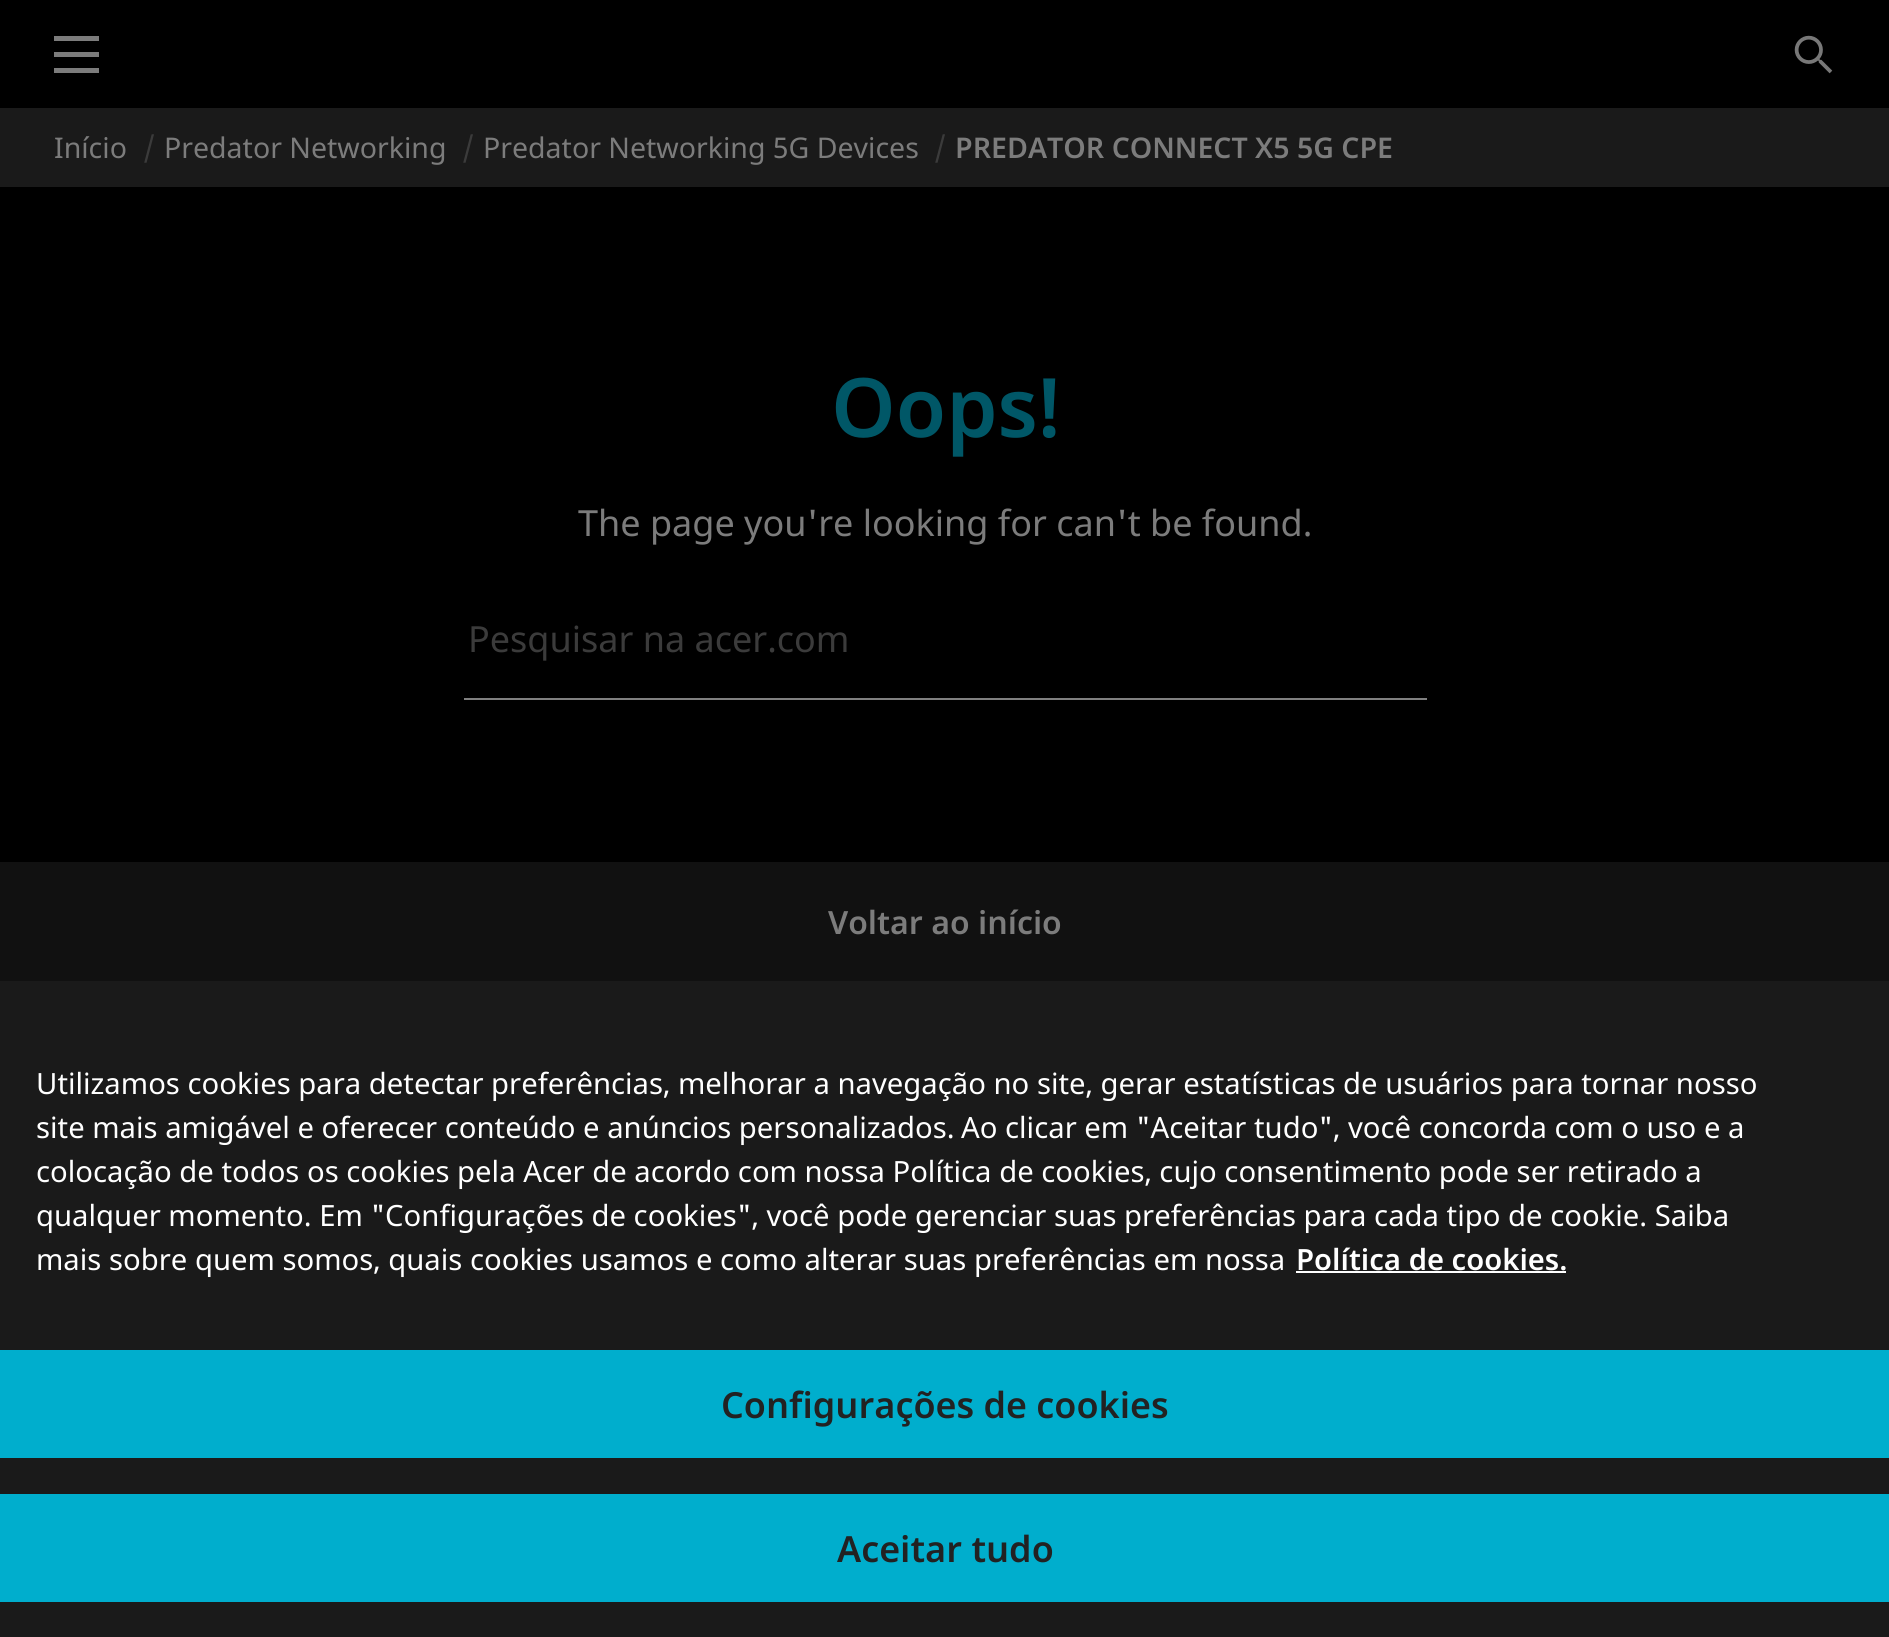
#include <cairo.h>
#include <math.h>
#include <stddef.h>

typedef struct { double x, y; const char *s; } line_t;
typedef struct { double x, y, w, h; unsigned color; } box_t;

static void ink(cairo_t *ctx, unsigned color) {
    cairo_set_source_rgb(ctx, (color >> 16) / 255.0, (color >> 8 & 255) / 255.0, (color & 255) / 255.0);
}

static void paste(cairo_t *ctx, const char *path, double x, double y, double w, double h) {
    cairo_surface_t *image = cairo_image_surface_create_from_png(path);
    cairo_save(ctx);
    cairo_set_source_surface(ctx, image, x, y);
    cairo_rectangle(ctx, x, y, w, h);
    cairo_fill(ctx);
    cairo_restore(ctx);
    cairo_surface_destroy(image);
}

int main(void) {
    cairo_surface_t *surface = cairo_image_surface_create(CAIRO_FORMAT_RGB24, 1889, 1637);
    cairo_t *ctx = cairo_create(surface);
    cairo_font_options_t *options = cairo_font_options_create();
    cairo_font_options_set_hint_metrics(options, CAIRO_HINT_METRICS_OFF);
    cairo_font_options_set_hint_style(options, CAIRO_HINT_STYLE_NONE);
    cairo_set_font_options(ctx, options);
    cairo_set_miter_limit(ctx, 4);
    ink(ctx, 0x000000);
    cairo_paint(ctx);
    {
        static const box_t items[] = {
            {54, 36, 45, 5, 0x7C7C7C},
            {54, 52, 45, 5, 0x7C7C7C},
            {54, 68, 45, 5, 0x7C7C7C},
        };
        for (size_t i = 0; i < sizeof items / sizeof *items; i++) {
            ink(ctx, items[i].color);
            cairo_rectangle(ctx, items[i].x, items[i].y, items[i].w, items[i].h);
            cairo_fill(ctx);
        }
    }
    paste(ctx, "media/1.png", 1794, 35, 39, 39);
    ink(ctx, 0x1A1A1A);
    cairo_rectangle(ctx, 0, 108, 1889, 79);
    cairo_fill(ctx);
    cairo_select_font_face(ctx, "Noto Sans", CAIRO_FONT_SLANT_NORMAL, CAIRO_FONT_WEIGHT_NORMAL);
    cairo_set_font_size(ctx, 28.5);
    ink(ctx, 0x7C7C7C);
    cairo_move_to(ctx, 54, 158);
    cairo_show_text(ctx, "Início");
    ink(ctx, 0x3B3B3B);
    cairo_move_to(ctx, 143, 158);
    cairo_show_text(ctx, "/");
    ink(ctx, 0x7C7C7C);
    cairo_move_to(ctx, 164, 158);
    cairo_show_text(ctx, "Predator Networking");
    ink(ctx, 0x3B3B3B);
    cairo_move_to(ctx, 462, 158);
    cairo_show_text(ctx, "/");
    ink(ctx, 0x7C7C7C);
    cairo_move_to(ctx, 483, 158);
    cairo_show_text(ctx, "Predator Networking 5G Devices");
    ink(ctx, 0x3B3B3B);
    cairo_move_to(ctx, 934, 158);
    cairo_show_text(ctx, "/");
    cairo_select_font_face(ctx, "Noto Sans SemiBold", CAIRO_FONT_SLANT_NORMAL, CAIRO_FONT_WEIGHT_NORMAL);
    ink(ctx, 0x7C7C7C);
    cairo_move_to(ctx, 955, 158);
    cairo_show_text(ctx, "PREDATOR CONNECT X5 5G CPE");
    cairo_set_font_size(ctx, 82);
    ink(ctx, 0x005767);
    cairo_move_to(ctx, 831, 437);
    cairo_show_text(ctx, "Oops!");
    cairo_select_font_face(ctx, "Noto Sans", CAIRO_FONT_SLANT_NORMAL, CAIRO_FONT_WEIGHT_NORMAL);
    cairo_set_font_size(ctx, 36);
    ink(ctx, 0x7C7C7C);
    cairo_move_to(ctx, 578, 536);
    cairo_show_text(ctx, "The page you're looking for can't be found.");
    ink(ctx, 0x808080);
    cairo_rectangle(ctx, 464, 698, 963, 2);
    cairo_fill(ctx);
    ink(ctx, 0x3B3B3B);
    cairo_move_to(ctx, 468, 652);
    cairo_show_text(ctx, "Pesquisar na acer.com");
    ink(ctx, 0x1A1A1A);
    cairo_rectangle(ctx, 0, 981, 1889, 656);
    cairo_fill(ctx);
    ink(ctx, 0x111111);
    cairo_rectangle(ctx, 0, 862, 1889, 119);
    cairo_fill(ctx);
    cairo_select_font_face(ctx, "Noto Sans SemiBold", CAIRO_FONT_SLANT_NORMAL, CAIRO_FONT_WEIGHT_NORMAL);
    cairo_set_font_size(ctx, 32);
    ink(ctx, 0x7C7C7C);
    cairo_move_to(ctx, 828, 934);
    cairo_show_text(ctx, "Voltar ao início");
    cairo_select_font_face(ctx, "Noto Sans", CAIRO_FONT_SLANT_NORMAL, CAIRO_FONT_WEIGHT_NORMAL);
    cairo_set_font_size(ctx, 29.27);
    ink(ctx, 0xFFFFFF);
    {
        static const line_t items[] = {
            {36, 1094, "Utilizamos cookies para detectar preferências, melhorar a navegação no site, gerar estatísticas de usuários para tornar nosso"},
            {36, 1138, "site mais amigável e oferecer conteúdo e anúncios personalizados."},
            {961, 1138, "Ao clicar em \"Aceitar tudo\", você concorda com o uso e a"},
            {36, 1182, "colocação de todos os cookies pela Acer de acordo com nossa Política de cookies, cujo consentimento pode ser retirado a"},
            {36, 1226, "qualquer momento. Em \"Configurações de cookies\", você pode gerenciar suas preferências para cada tipo de cookie. Saiba"},
            {36, 1270, "mais sobre quem somos, quais cookies usamos e como alterar suas preferências em nossa"},
        };
        for (size_t i = 0; i < sizeof items / sizeof *items; i++) {
            cairo_move_to(ctx, items[i].x, items[i].y);
            cairo_show_text(ctx, items[i].s);
        }
    }
    cairo_select_font_face(ctx, "Noto Sans SemiBold", CAIRO_FONT_SLANT_NORMAL, CAIRO_FONT_WEIGHT_NORMAL);
    cairo_move_to(ctx, 1296, 1270);
    cairo_show_text(ctx, "Política de cookies.");
    cairo_rectangle(ctx, 1296, 1271, 270, 2);
    cairo_fill(ctx);
    ink(ctx, 0x00AECD);
    cairo_rectangle(ctx, 0, 1350, 1889, 108);
    cairo_fill(ctx);
    cairo_set_font_size(ctx, 36);
    ink(ctx, 0x222222);
    cairo_move_to(ctx, 721, 1418);
    cairo_show_text(ctx, "Configurações de cookies");
    ink(ctx, 0x00AECD);
    cairo_rectangle(ctx, 0, 1494, 1889, 108);
    cairo_fill(ctx);
    ink(ctx, 0x222222);
    cairo_move_to(ctx, 837, 1562);
    cairo_show_text(ctx, "Aceitar tudo");
    cairo_surface_write_to_png(surface, "image.png");
    cairo_font_options_destroy(options);
    cairo_destroy(ctx);
    cairo_surface_destroy(surface);
    return 0;
}
